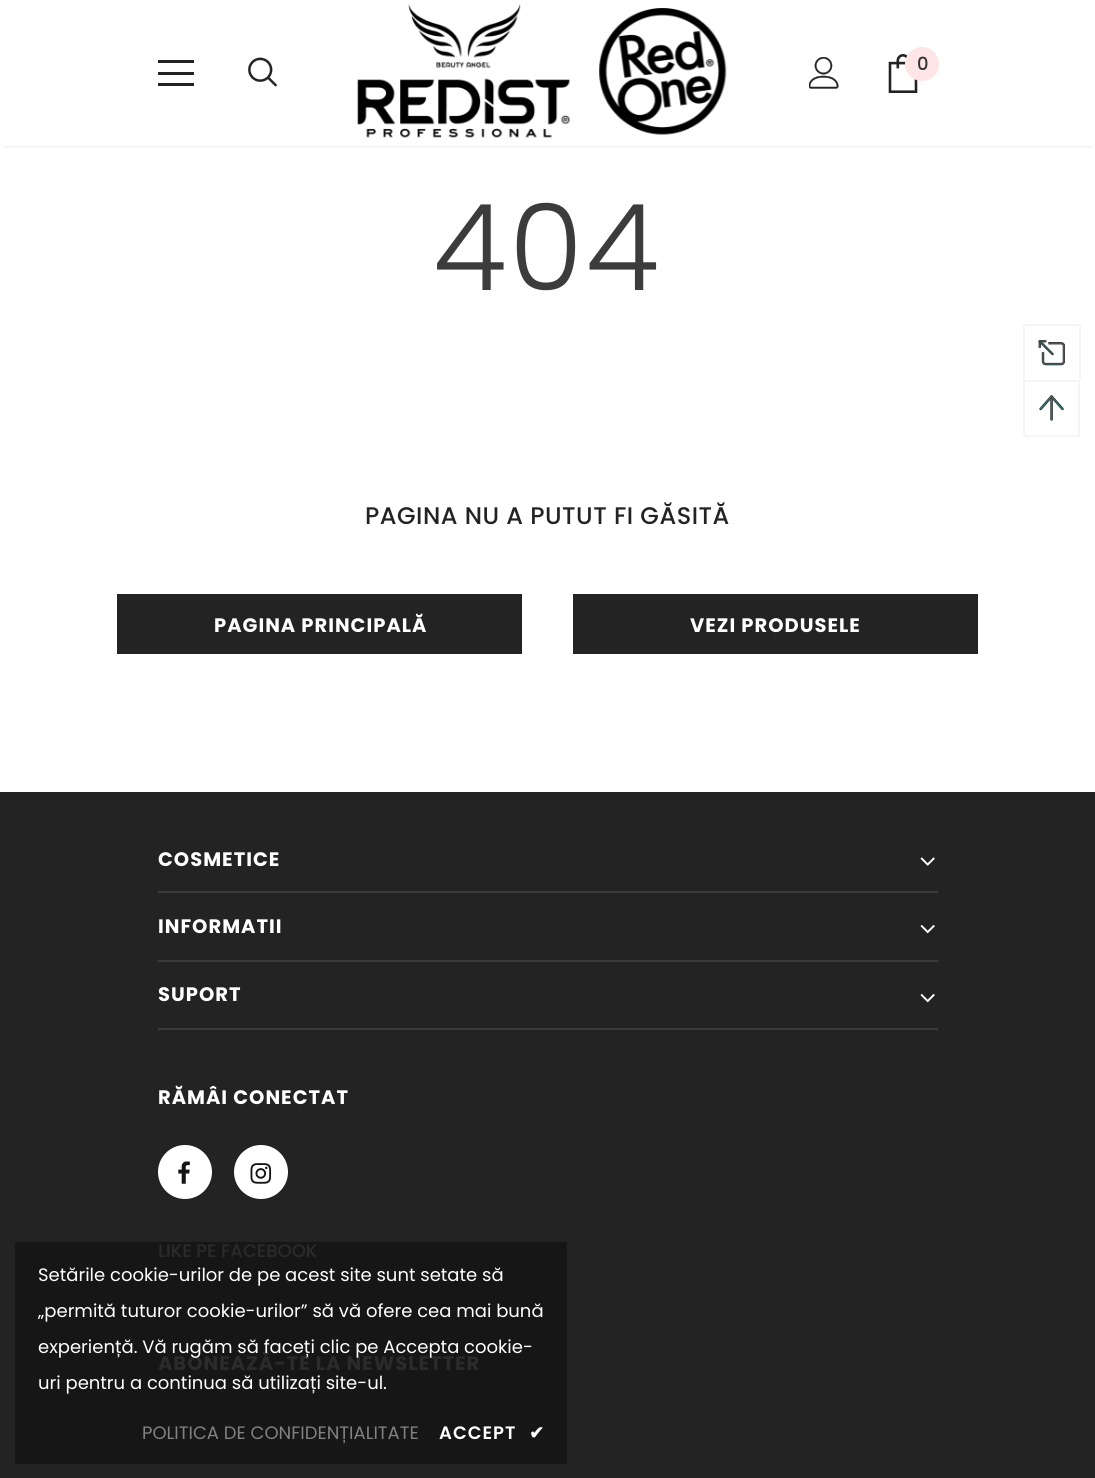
#include <cairo.h>
#include <math.h>
#include <stddef.h>

typedef struct { double x, y; const char *s; } line_t;
typedef struct { double x, y, w, h; unsigned color; } box_t;

static void ink(cairo_t *ctx, unsigned color) {
    cairo_set_source_rgb(ctx, (color >> 16) / 255.0, (color >> 8 & 255) / 255.0, (color & 255) / 255.0);
}

static void write_spaced(cairo_t *ctx, double x, double y, const char *s, double letter, double word) {
    cairo_move_to(ctx, x, y);
    while (*s) {
        char ch[5] = {0};
        int n = 0;
        do ch[n++] = *s++; while ((*s & 0xC0) == 0x80);
        cairo_show_text(ctx, ch);
        cairo_rel_move_to(ctx, letter + word * (*ch == ' '), 0);
    }
}

static void round_path(cairo_t *ctx, double x, double y, double w, double h, double r) {
    cairo_new_sub_path(ctx);
    cairo_arc(ctx, x + w - r, y + h - r, r, 0, M_PI / 2);
    cairo_arc(ctx, x + r, y + h - r, r, M_PI / 2, M_PI);
    cairo_arc(ctx, x + r, y + r, r, M_PI, 1.5 * M_PI);
    cairo_arc(ctx, x + w - r, y + r, r, 1.5 * M_PI, 2 * M_PI);
    cairo_close_path(ctx);
}

static void blur_box(cairo_t *ctx, double x, double y, double w, double h, double r, double blur, double alpha) {
    cairo_push_group_with_content(ctx, CAIRO_CONTENT_ALPHA);
    cairo_set_operator(ctx, CAIRO_OPERATOR_SOURCE);
    for (int i = 15; i >= -15 && fmin(w, h) + blur * i / 3 > 0; i -= 2) {
        double e = blur * i / 6;
        cairo_set_source_rgba(ctx, 0, 0, 0, alpha * erfc((i - 1) / 8.5) / 2);
        round_path(ctx, x - e, y - e, w + 2 * e, h + 2 * e, fmax(0, fmin(r + e + blur * .6, fmin(w, h) / 2 + e)));
        cairo_fill(ctx);
    }
    cairo_pattern_t *soft = cairo_pop_group(ctx);
    cairo_mask(ctx, soft);
    cairo_pattern_destroy(soft);
}

static void paste(cairo_t *ctx, const char *path, double x, double y, double w, double h) {
    cairo_surface_t *image = cairo_image_surface_create_from_png(path);
    cairo_save(ctx);
    cairo_set_source_surface(ctx, image, x, y);
    cairo_rectangle(ctx, x, y, w, h);
    cairo_fill(ctx);
    cairo_restore(ctx);
    cairo_surface_destroy(image);
}

int main(void) {
    cairo_surface_t *surface = cairo_image_surface_create(CAIRO_FORMAT_RGB24, 1095, 1478);
    cairo_t *ctx = cairo_create(surface);
    cairo_font_options_t *options = cairo_font_options_create();
    cairo_font_options_set_hint_metrics(options, CAIRO_HINT_METRICS_OFF);
    cairo_font_options_set_hint_style(options, CAIRO_HINT_STYLE_NONE);
    cairo_set_font_options(ctx, options);
    cairo_set_miter_limit(ctx, 4);
    ink(ctx, 0xFFFFFF);
    cairo_paint(ctx);
    ink(ctx, 0x000000);
    blur_box(ctx, 5, 9, 1086, 137, 0, 2, 0.12);
    {
        static const box_t items[] = {
            {2, 6, 1092, 140, 0xFFFFFF},
            {158, 60, 36, 3, 0x232323},
            {158, 72, 36, 3, 0x232323},
            {158, 83, 36, 3, 0x232323},
        };
        for (size_t i = 0; i < sizeof items / sizeof *items; i++) {
            ink(ctx, items[i].color);
            cairo_rectangle(ctx, items[i].x, items[i].y, items[i].w, items[i].h);
            cairo_fill(ctx);
        }
    }
    paste(ctx, "media/1.png", 248, 57, 29, 30);
    paste(ctx, "media/2.png", 357, 4, 370, 134);
    paste(ctx, "media/3.png", 809, 57, 30, 32);
    paste(ctx, "media/4.png", 888, 54, 30, 39);
    ink(ctx, 0xFFE5E5);
    cairo_arc(ctx, 922, 64, 17, 0, 2 * M_PI);
    cairo_fill(ctx);
    cairo_select_font_face(ctx, "Poppins Medium", CAIRO_FONT_SLANT_NORMAL, CAIRO_FONT_WEIGHT_NORMAL);
    cairo_set_font_size(ctx, 18);
    ink(ctx, 0x323232);
    cairo_move_to(ctx, 917, 70);
    cairo_show_text(ctx, "0");
    cairo_select_font_face(ctx, "Poppins Light", CAIRO_FONT_SLANT_NORMAL, CAIRO_FONT_WEIGHT_NORMAL);
    cairo_set_font_size(ctx, 120);
    ink(ctx, 0x3C3C3C);
    write_spaced(ctx, 433, 290, "404", 2.5, 0);
    cairo_select_font_face(ctx, "Poppins Medium", CAIRO_FONT_SLANT_NORMAL, CAIRO_FONT_WEIGHT_NORMAL);
    cairo_set_font_size(ctx, 24);
    ink(ctx, 0x232323);
    write_spaced(ctx, 365, 524, "PAGINA NU A PUTUT FI GĂSITĂ", 0.5, 0);
    cairo_rectangle(ctx, 117, 594, 405, 60);
    cairo_fill(ctx);
    cairo_select_font_face(ctx, "Poppins", CAIRO_FONT_SLANT_NORMAL, CAIRO_FONT_WEIGHT_BOLD);
    cairo_set_font_size(ctx, 19.5);
    ink(ctx, 0xFFFFFF);
    write_spaced(ctx, 214, 632, "PAGINA PRINCIPALĂ", 1, 0);
    ink(ctx, 0x232323);
    cairo_rectangle(ctx, 573, 594, 405, 60);
    cairo_fill(ctx);
    ink(ctx, 0xFFFFFF);
    write_spaced(ctx, 690, 632, "VEZI PRODUSELE", 1, 0);
    {
        static const box_t items[] = {
            {0, 792, 1095, 686, 0x232323},
            {15, 1242, 552, 222, 0x161616},
            {158, 891, 780, 2, 0x3B3B3B},
        };
        for (size_t i = 0; i < sizeof items / sizeof *items; i++) {
            ink(ctx, items[i].color);
            cairo_rectangle(ctx, items[i].x, items[i].y, items[i].w, items[i].h);
            cairo_fill(ctx);
        }
    }
    ink(ctx, 0xFFFFFF);
    write_spaced(ctx, 158, 866, "COSMETICE", 1, 0);
    paste(ctx, "media/5.png", 920, 857, 15, 9);
    ink(ctx, 0x3B3B3B);
    cairo_rectangle(ctx, 158, 960, 780, 2);
    cairo_fill(ctx);
    ink(ctx, 0xFFFFFF);
    write_spaced(ctx, 158, 933, "INFORMATII", 1, 0);
    paste(ctx, "media/6.png", 920, 925, 15, 9);
    ink(ctx, 0x3B3B3B);
    cairo_rectangle(ctx, 158, 1028, 780, 2);
    cairo_fill(ctx);
    ink(ctx, 0xFFFFFF);
    write_spaced(ctx, 158, 1001, "SUPORT", 1, 0);
    paste(ctx, "media/6.png", 920, 994, 15, 9);
    write_spaced(ctx, 158, 1104, "RĂMÂI CONECTAT", 1, 0);
    cairo_new_path(ctx);
    cairo_arc(ctx, 185, 1172, 27, 0, 2 * M_PI);
    cairo_fill(ctx);
    paste(ctx, "media/7.png", 178, 1161, 12, 23);
    cairo_arc(ctx, 261, 1172, 27, 0, 2 * M_PI);
    cairo_fill(ctx);
    paste(ctx, "media/8.png", 250, 1163, 22, 21);
    cairo_select_font_face(ctx, "Poppins Medium", CAIRO_FONT_SLANT_NORMAL, CAIRO_FONT_WEIGHT_NORMAL);
    cairo_set_font_size(ctx, 18);
    ink(ctx, 0x2B2B2B);
    cairo_move_to(ctx, 158, 1257);
    cairo_show_text(ctx, "LIKE PE FACEBOOK");
    cairo_select_font_face(ctx, "Poppins", CAIRO_FONT_SLANT_NORMAL, CAIRO_FONT_WEIGHT_BOLD);
    cairo_set_font_size(ctx, 19.5);
    write_spaced(ctx, 158, 1370, "ABONEAZĂ-TE LA NEWSLETTER", 1, 0);
    cairo_select_font_face(ctx, "Poppins", CAIRO_FONT_SLANT_NORMAL, CAIRO_FONT_WEIGHT_NORMAL);
    cairo_set_font_size(ctx, 18);
    ink(ctx, 0xFFFFFF);
    {
        static const line_t items[] = {
            {38, 1281, "Setările cookie-urilor de pe acest site sunt setate să"},
            {38, 1317, "„permită tuturor cookie-urilor” să vă ofere cea mai bună"},
            {38, 1353, "experiență. Vă rugăm să faceți clic pe Accepta cookie-"},
            {38, 1389, "uri pentru a continua să utilizați site-ul."},
        };
        for (size_t i = 0; i < sizeof items / sizeof *items; i++) {
            cairo_move_to(ctx, items[i].x, items[i].y);
            cairo_show_text(ctx, items[i].s);
        }
    }
    ink(ctx, 0x818181);
    cairo_move_to(ctx, 142, 1439);
    cairo_show_text(ctx, "POLITICA DE CONFIDENȚIALITATE");
    cairo_select_font_face(ctx, "Poppins SemiBold", CAIRO_FONT_SLANT_NORMAL, CAIRO_FONT_WEIGHT_NORMAL);
    ink(ctx, 0xFFFFFF);
    write_spaced(ctx, 439, 1439, "ACCEPT", 1, 0);
    cairo_select_font_face(ctx, "DejaVu Sans", CAIRO_FONT_SLANT_NORMAL, CAIRO_FONT_WEIGHT_BOLD);
    write_spaced(ctx, 529, 1439, "✔", 1, 0);
    {
        static const box_t items[] = {
            {1023, 324, 57, 2, 0xF5F5F6},
            {1079, 324, 2, 56, 0xF5F5F6},
            {1023, 324, 2, 56, 0xF5F5F6},
        };
        for (size_t i = 0; i < sizeof items / sizeof *items; i++) {
            ink(ctx, items[i].color);
            cairo_rectangle(ctx, items[i].x, items[i].y, items[i].w, items[i].h);
            cairo_fill(ctx);
        }
    }
    paste(ctx, "media/9.png", 1038, 340, 27, 26);
    cairo_rectangle(ctx, 1024, 381, 55, 55);
    cairo_stroke(ctx);
    paste(ctx, "media/10.png", 1039, 395, 25, 26);
    cairo_surface_write_to_png(surface, "image.png");
    cairo_font_options_destroy(options);
    cairo_destroy(ctx);
    cairo_surface_destroy(surface);
    return 0;
}
